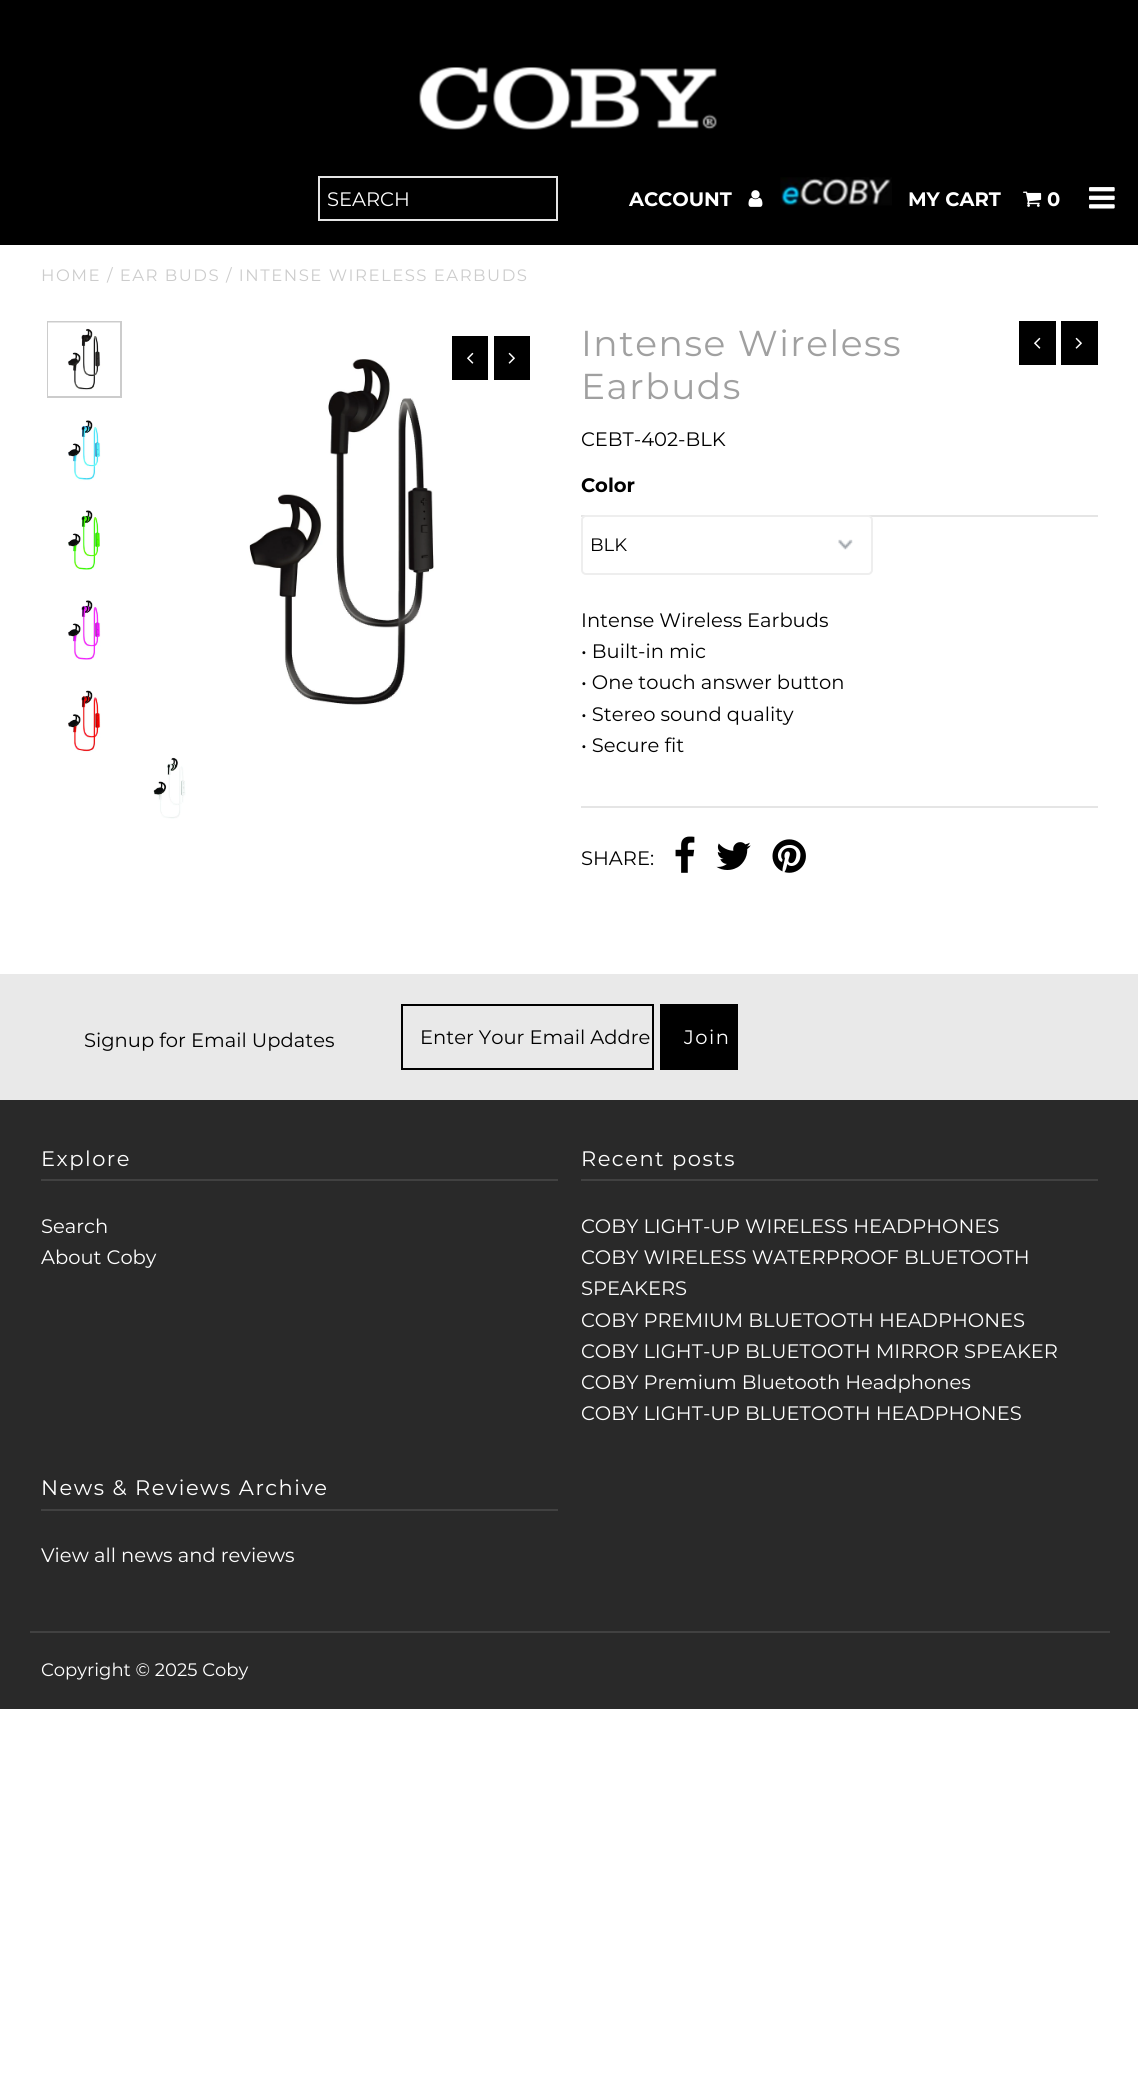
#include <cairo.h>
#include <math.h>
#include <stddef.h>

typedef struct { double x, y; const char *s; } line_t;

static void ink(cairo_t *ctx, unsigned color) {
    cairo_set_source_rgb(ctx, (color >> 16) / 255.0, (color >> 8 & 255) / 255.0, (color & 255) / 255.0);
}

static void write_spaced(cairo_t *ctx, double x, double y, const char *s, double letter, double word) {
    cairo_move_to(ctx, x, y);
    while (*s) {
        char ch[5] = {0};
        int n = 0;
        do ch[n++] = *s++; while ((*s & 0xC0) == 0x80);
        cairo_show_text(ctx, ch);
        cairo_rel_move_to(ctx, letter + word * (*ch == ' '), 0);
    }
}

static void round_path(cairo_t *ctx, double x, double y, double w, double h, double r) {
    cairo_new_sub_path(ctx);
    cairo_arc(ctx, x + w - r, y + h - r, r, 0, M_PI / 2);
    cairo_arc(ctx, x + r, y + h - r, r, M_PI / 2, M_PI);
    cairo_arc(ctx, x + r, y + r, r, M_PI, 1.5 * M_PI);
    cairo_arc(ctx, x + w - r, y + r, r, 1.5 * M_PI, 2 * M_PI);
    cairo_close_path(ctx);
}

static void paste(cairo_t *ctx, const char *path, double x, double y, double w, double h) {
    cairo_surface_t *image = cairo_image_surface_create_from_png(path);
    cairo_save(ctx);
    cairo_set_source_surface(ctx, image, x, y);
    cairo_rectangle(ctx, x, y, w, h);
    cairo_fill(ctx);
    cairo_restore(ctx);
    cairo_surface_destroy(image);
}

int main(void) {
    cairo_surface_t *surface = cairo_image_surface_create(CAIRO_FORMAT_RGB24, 1138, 2081);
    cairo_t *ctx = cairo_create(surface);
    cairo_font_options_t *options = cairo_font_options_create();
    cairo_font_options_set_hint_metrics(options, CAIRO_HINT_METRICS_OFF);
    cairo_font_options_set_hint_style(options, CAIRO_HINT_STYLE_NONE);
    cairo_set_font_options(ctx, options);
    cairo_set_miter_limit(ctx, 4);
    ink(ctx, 0xFFFFFF);
    cairo_paint(ctx);
    ink(ctx, 0x000000);
    cairo_rectangle(ctx, 0, 0, 1138, 245);
    cairo_fill(ctx);
    paste(ctx, "media/1.png", 419, 67, 298, 63);
    cairo_rectangle(ctx, 319, 177, 238, 43);
    ink(ctx, 0xE5E5E5);
    cairo_stroke(ctx);
    cairo_select_font_face(ctx, "Montserrat", CAIRO_FONT_SLANT_NORMAL, CAIRO_FONT_WEIGHT_NORMAL);
    cairo_set_font_size(ctx, 19.5);
    ink(ctx, 0xFFFFFF);
    cairo_move_to(ctx, 327, 206);
    cairo_show_text(ctx, "SEARCH");
    cairo_select_font_face(ctx, "Montserrat", CAIRO_FONT_SLANT_NORMAL, CAIRO_FONT_WEIGHT_BOLD);
    cairo_move_to(ctx, 629, 206);
    cairo_show_text(ctx, "ACCOUNT");
    paste(ctx, "media/2.png", 748, 190, 15, 17);
    paste(ctx, "media/3.png", 780, 177, 112, 29);
    cairo_move_to(ctx, 908, 206);
    cairo_show_text(ctx, "MY CART");
    paste(ctx, "media/4.png", 1023, 191, 19, 16);
    cairo_move_to(ctx, 1047, 206);
    cairo_show_text(ctx, "0");
    paste(ctx, "media/5.png", 1089, 187, 26, 22);
    cairo_select_font_face(ctx, "Montserrat", CAIRO_FONT_SLANT_NORMAL, CAIRO_FONT_WEIGHT_NORMAL);
    cairo_set_font_size(ctx, 16.5);
    ink(ctx, 0xCCCCCC);
    write_spaced(ctx, 41, 281, "HOME / EAR BUDS / INTENSE WIRELESS EARBUDS", 1.5, 0);
    cairo_rectangle(ctx, 48, 322, 73, 75);
    cairo_stroke(ctx);
    paste(ctx, "media/6.png", 48, 322, 72, 74);
    paste(ctx, "media/7.png", 68, 420, 33, 61);
    paste(ctx, "media/8.png", 68, 510, 32, 60);
    paste(ctx, "media/9.png", 68, 600, 33, 60);
    paste(ctx, "media/10.png", 68, 690, 33, 62);
    paste(ctx, "media/11.png", 153, 757, 33, 62);
    paste(ctx, "media/12.png", 249, 359, 185, 346);
    ink(ctx, 0x000000);
    cairo_rectangle(ctx, 452, 336, 36, 44);
    cairo_fill(ctx);
    paste(ctx, "media/13.png", 467, 352, 7, 12);
    cairo_rectangle(ctx, 494, 336, 36, 44);
    cairo_fill(ctx);
    paste(ctx, "media/14.png", 508, 352, 7, 12);
    cairo_set_font_size(ctx, 36);
    ink(ctx, 0xA0A0A0);
    write_spaced(ctx, 581, 356, "Intense Wireless", 1.5, 0);
    write_spaced(ctx, 581, 399, "Earbuds", 1.5, 0);
    ink(ctx, 0x000000);
    cairo_rectangle(ctx, 1019, 321, 37, 44);
    cairo_fill(ctx);
    paste(ctx, "media/13.png", 1034, 337, 7, 12);
    cairo_rectangle(ctx, 1061, 321, 37, 44);
    cairo_fill(ctx);
    paste(ctx, "media/14.png", 1075, 337, 7, 12);
    cairo_set_font_size(ctx, 19.5);
    cairo_move_to(ctx, 581, 446);
    cairo_show_text(ctx, "CEBT-402-BLK");
    ink(ctx, 0xE5E5E5);
    cairo_rectangle(ctx, 581, 515, 517, 2);
    cairo_fill(ctx);
    cairo_select_font_face(ctx, "Montserrat", CAIRO_FONT_SLANT_NORMAL, CAIRO_FONT_WEIGHT_BOLD);
    ink(ctx, 0x000000);
    cairo_move_to(ctx, 581, 492);
    cairo_show_text(ctx, "Color");
    paste(ctx, "media/15.png", 838, 539, 15, 11);
    round_path(ctx, 582, 516, 290, 58, 4);
    ink(ctx, 0xEEEEEE);
    cairo_stroke(ctx);
    cairo_select_font_face(ctx, "Montserrat", CAIRO_FONT_SLANT_NORMAL, CAIRO_FONT_WEIGHT_NORMAL);
    cairo_set_font_size(ctx, 18);
    ink(ctx, 0x000000);
    cairo_move_to(ctx, 590, 551);
    cairo_show_text(ctx, "BLK");
    cairo_set_font_size(ctx, 19.5);
    {
        static const line_t items[] = {
            {581, 627, "Intense Wireless Earbuds"},
            {581, 658, "• Built-in mic"},
            {581, 689, "• One touch answer button"},
            {581, 721, "• Stereo sound quality"},
            {581, 752, "• Secure fit"},
        };
        for (size_t i = 0; i < sizeof items / sizeof *items; i++) {
            cairo_move_to(ctx, items[i].x, items[i].y);
            cairo_show_text(ctx, items[i].s);
        }
    }
    ink(ctx, 0xE5E5E5);
    cairo_rectangle(ctx, 581, 806, 517, 2);
    cairo_fill(ctx);
    ink(ctx, 0x000000);
    cairo_move_to(ctx, 581, 865);
    cairo_show_text(ctx, "SHARE:");
    paste(ctx, "media/16.png", 675, 836, 20, 37);
    paste(ctx, "media/17.png", 716, 842, 35, 28);
    paste(ctx, "media/18.png", 772, 839, 34, 34);
    ink(ctx, 0xE9E9E9);
    cairo_rectangle(ctx, 0, 974, 1138, 126);
    cairo_fill(ctx);
    ink(ctx, 0x000000);
    cairo_move_to(ctx, 84, 1047);
    cairo_show_text(ctx, "Signup for Email Updates");
    cairo_rectangle(ctx, 402, 1005, 251, 64);
    cairo_stroke(ctx);
    cairo_move_to(ctx, 420, 1044);
    cairo_show_text(ctx, "Enter Your Email Addre");
    cairo_rectangle(ctx, 660, 1004, 78, 66);
    cairo_fill(ctx);
    ink(ctx, 0xFFFFFF);
    write_spaced(ctx, 684, 1044, "Join", 1.5, 0);
    ink(ctx, 0x292929);
    cairo_rectangle(ctx, 0, 1100, 1138, 609);
    cairo_fill(ctx);
    ink(ctx, 0x414141);
    cairo_rectangle(ctx, 41, 1179, 517, 2);
    cairo_fill(ctx);
    cairo_set_font_size(ctx, 21);
    ink(ctx, 0xFFFFFF);
    write_spaced(ctx, 41, 1166, "Explore", 1.5, 0);
    cairo_set_font_size(ctx, 19.5);
    cairo_move_to(ctx, 41, 1233);
    cairo_show_text(ctx, "Search");
    cairo_move_to(ctx, 41, 1264);
    cairo_show_text(ctx, "About Coby");
    ink(ctx, 0x414141);
    cairo_rectangle(ctx, 581, 1179, 517, 2);
    cairo_fill(ctx);
    cairo_set_font_size(ctx, 21);
    ink(ctx, 0xFFFFFF);
    write_spaced(ctx, 581, 1166, "Recent posts", 1.5, 0);
    cairo_set_font_size(ctx, 19.5);
    {
        static const line_t items[] = {
            {581, 1233, "COBY LIGHT-UP WIRELESS HEADPHONES"},
            {581, 1264, "COBY WIRELESS WATERPROOF BLUETOOTH"},
            {581, 1295, "SPEAKERS"},
            {581, 1327, "COBY PREMIUM BLUETOOTH HEADPHONES"},
            {581, 1358, "COBY LIGHT-UP BLUETOOTH MIRROR SPEAKER"},
            {581, 1389, "COBY Premium Bluetooth Headphones"},
            {581, 1420, "COBY LIGHT-UP BLUETOOTH HEADPHONES"},
        };
        for (size_t i = 0; i < sizeof items / sizeof *items; i++) {
            cairo_move_to(ctx, items[i].x, items[i].y);
            cairo_show_text(ctx, items[i].s);
        }
    }
    ink(ctx, 0x414141);
    cairo_rectangle(ctx, 41, 1509, 517, 2);
    cairo_fill(ctx);
    cairo_set_font_size(ctx, 21);
    ink(ctx, 0xFFFFFF);
    write_spaced(ctx, 41, 1495, "News & Reviews Archive", 1.5, 0);
    cairo_set_font_size(ctx, 19.5);
    cairo_move_to(ctx, 41, 1562);
    cairo_show_text(ctx, "View all news and reviews");
    ink(ctx, 0x414141);
    cairo_rectangle(ctx, 30, 1631, 1080, 2);
    cairo_fill(ctx);
    cairo_set_font_size(ctx, 18);
    ink(ctx, 0xFFFFFF);
    cairo_move_to(ctx, 41, 1676);
    cairo_show_text(ctx, "Copyright © 2025 Coby");
    cairo_surface_write_to_png(surface, "image.png");
    cairo_font_options_destroy(options);
    cairo_destroy(ctx);
    cairo_surface_destroy(surface);
    return 0;
}
